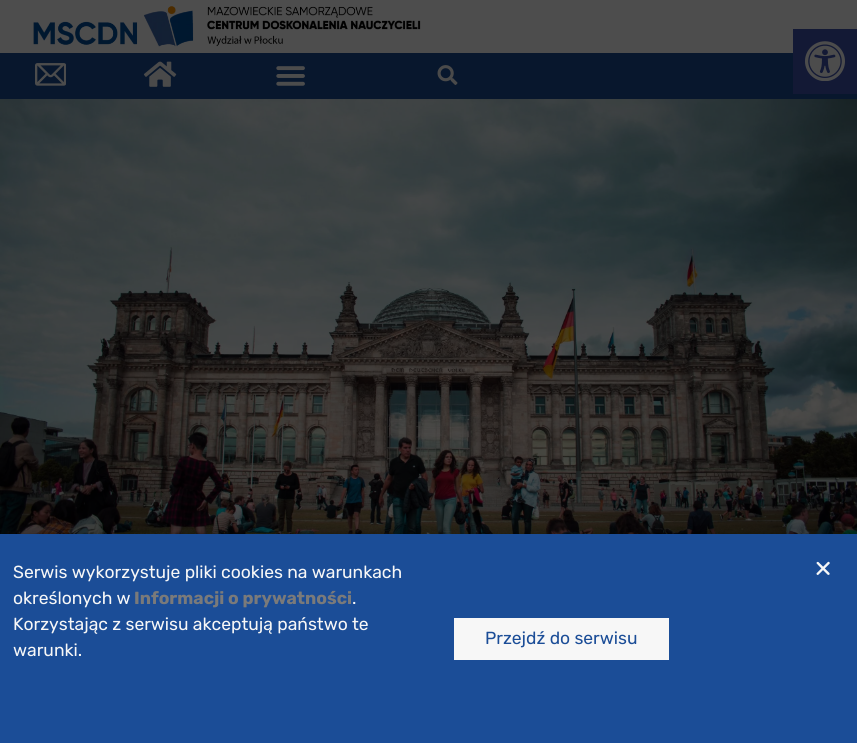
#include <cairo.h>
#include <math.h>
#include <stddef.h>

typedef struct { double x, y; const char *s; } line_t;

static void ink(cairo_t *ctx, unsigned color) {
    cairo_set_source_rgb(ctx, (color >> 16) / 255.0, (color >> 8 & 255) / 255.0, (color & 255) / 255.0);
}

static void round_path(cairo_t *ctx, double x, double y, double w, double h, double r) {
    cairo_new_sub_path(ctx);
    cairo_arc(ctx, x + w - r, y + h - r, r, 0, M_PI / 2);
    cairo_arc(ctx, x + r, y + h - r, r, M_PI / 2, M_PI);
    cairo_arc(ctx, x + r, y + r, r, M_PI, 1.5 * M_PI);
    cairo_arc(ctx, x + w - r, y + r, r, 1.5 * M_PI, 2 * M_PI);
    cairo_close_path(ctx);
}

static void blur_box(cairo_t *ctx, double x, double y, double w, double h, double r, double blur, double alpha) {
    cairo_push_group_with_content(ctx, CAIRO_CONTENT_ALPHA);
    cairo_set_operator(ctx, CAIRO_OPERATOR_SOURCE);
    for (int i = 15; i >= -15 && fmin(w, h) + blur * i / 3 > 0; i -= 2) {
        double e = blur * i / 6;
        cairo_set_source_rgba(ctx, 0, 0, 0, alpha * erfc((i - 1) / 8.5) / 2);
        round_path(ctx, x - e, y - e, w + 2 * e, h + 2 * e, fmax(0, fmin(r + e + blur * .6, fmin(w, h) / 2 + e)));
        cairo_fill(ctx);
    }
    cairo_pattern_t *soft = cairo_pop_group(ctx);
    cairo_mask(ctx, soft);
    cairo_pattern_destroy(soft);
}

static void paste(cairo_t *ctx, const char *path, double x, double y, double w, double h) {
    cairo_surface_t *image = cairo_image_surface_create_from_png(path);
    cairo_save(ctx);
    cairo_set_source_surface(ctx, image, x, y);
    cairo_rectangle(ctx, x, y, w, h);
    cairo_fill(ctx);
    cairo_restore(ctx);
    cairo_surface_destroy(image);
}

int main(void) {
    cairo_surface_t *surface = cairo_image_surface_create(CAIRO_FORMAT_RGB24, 857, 743);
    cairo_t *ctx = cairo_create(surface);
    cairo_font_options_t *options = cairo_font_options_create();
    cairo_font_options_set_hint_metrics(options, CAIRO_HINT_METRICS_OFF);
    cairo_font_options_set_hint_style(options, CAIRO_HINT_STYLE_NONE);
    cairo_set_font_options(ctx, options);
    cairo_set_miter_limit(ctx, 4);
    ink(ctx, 0x4D4D4D);
    cairo_paint(ctx);
    paste(ctx, "media/1.png", 33, 6, 388, 41);
    ink(ctx, 0x08172D);
    cairo_rectangle(ctx, 0, 53, 857, 46);
    cairo_fill(ctx);
    paste(ctx, "media/2.png", 35, 63, 31, 23);
    paste(ctx, "media/3.png", 143, 61, 34, 26);
    paste(ctx, "media/4.png", 276, 66, 29, 20);
    paste(ctx, "media/5.png", 437, 65, 21, 20);
    ink(ctx, 0x131935);
    cairo_rectangle(ctx, 793, 29, 64, 65);
    cairo_fill(ctx);
    paste(ctx, "media/6.png", 805, 41, 40, 40);
    paste(ctx, "media/7.png", 0, 99, 857, 435);
    ink(ctx, 0x000000);
    blur_box(ctx, -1, 540, 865, 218, 0, 14.5, 0.2);
    ink(ctx, 0x1B4D97);
    cairo_rectangle(ctx, 0, 534, 857, 209);
    cairo_fill(ctx);
    cairo_select_font_face(ctx, "Rubik", CAIRO_FONT_SLANT_NORMAL, CAIRO_FONT_WEIGHT_NORMAL);
    cairo_set_font_size(ctx, 17.5);
    ink(ctx, 0xF7F7F7);
    cairo_move_to(ctx, 13, 578);
    cairo_show_text(ctx, "Serwis wykorzystuje pliki cookies na warunkach");
    cairo_move_to(ctx, 13, 604);
    cairo_show_text(ctx, "określonych w");
    cairo_select_font_face(ctx, "Rubik", CAIRO_FONT_SLANT_NORMAL, CAIRO_FONT_WEIGHT_BOLD);
    ink(ctx, 0x7A7A7A);
    cairo_move_to(ctx, 134, 604);
    cairo_show_text(ctx, "Informacji o prywatności");
    cairo_select_font_face(ctx, "Rubik", CAIRO_FONT_SLANT_NORMAL, CAIRO_FONT_WEIGHT_NORMAL);
    ink(ctx, 0xF7F7F7);
    {
        static const line_t items[] = {
            {352, 604, "."},
            {13, 630, "Korzystając z serwisu akceptują państwo te"},
            {13, 656, "warunki."},
        };
        for (size_t i = 0; i < sizeof items / sizeof *items; i++) {
            cairo_move_to(ctx, items[i].x, items[i].y);
            cairo_show_text(ctx, items[i].s);
        }
    }
    cairo_rectangle(ctx, 454, 618, 215, 42);
    cairo_fill(ctx);
    ink(ctx, 0x1B4D97);
    cairo_move_to(ctx, 485, 644);
    cairo_show_text(ctx, "Przejdź do serwisu");
    paste(ctx, "media/8.png", 816, 561, 14, 14);
    cairo_surface_write_to_png(surface, "image.png");
    cairo_font_options_destroy(options);
    cairo_destroy(ctx);
    cairo_surface_destroy(surface);
    return 0;
}
